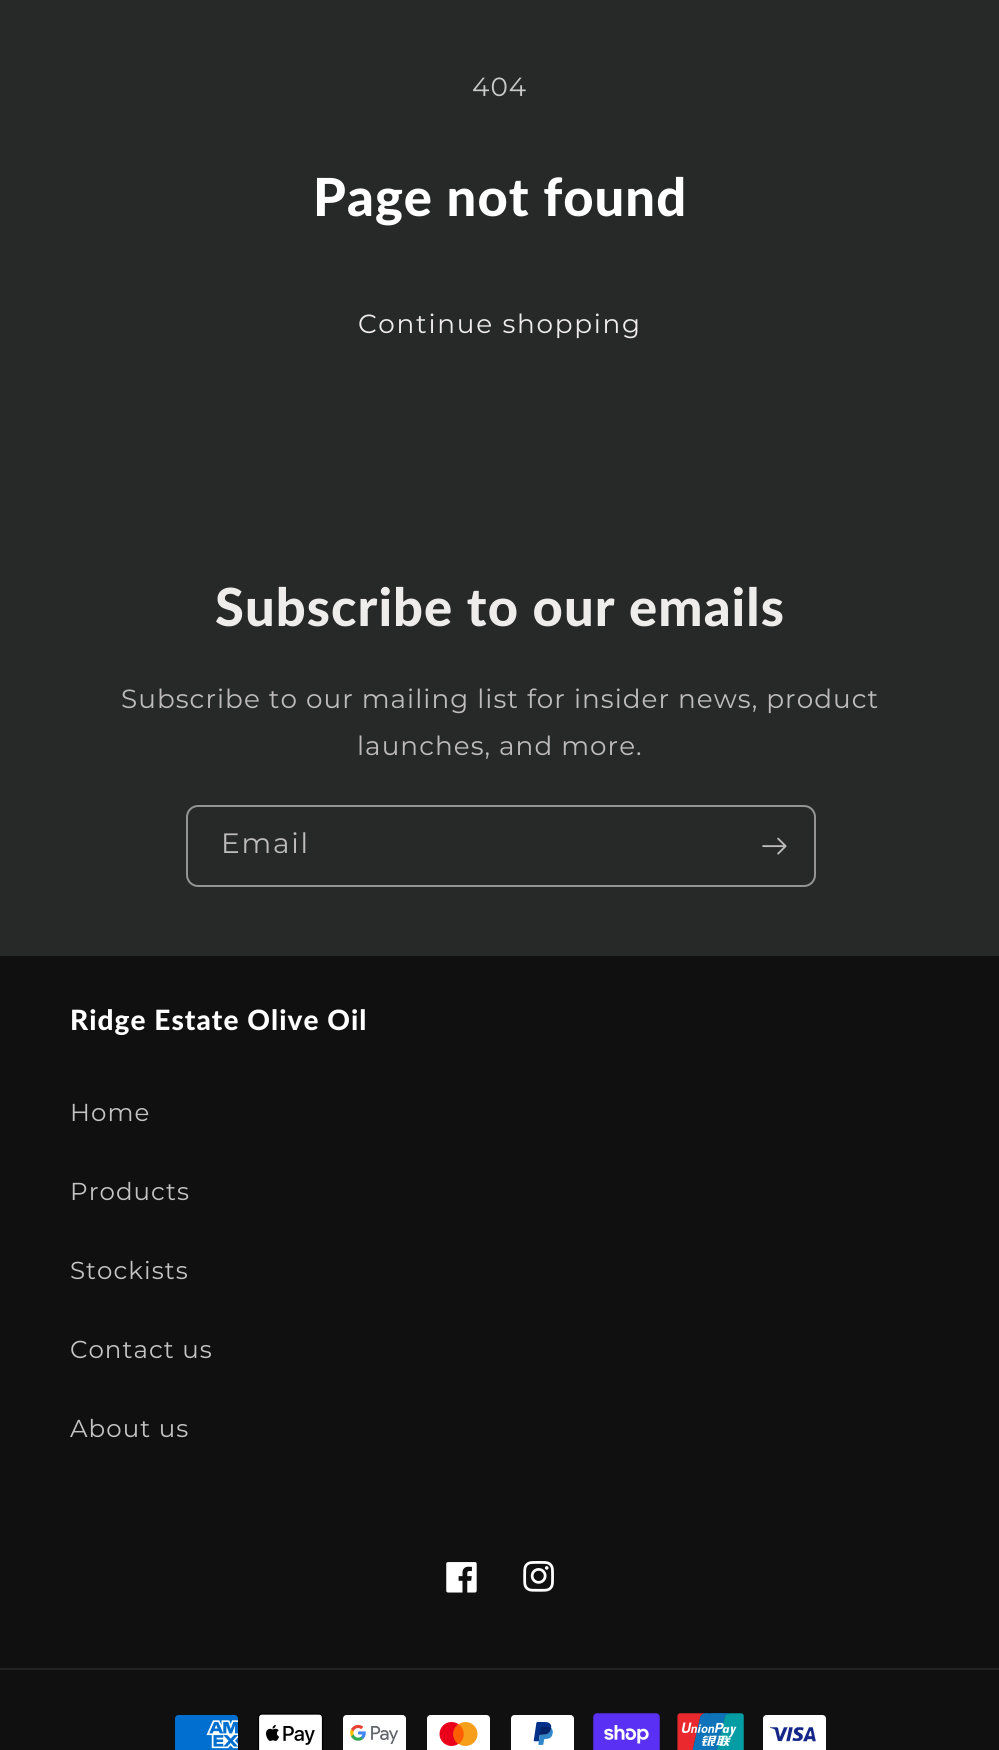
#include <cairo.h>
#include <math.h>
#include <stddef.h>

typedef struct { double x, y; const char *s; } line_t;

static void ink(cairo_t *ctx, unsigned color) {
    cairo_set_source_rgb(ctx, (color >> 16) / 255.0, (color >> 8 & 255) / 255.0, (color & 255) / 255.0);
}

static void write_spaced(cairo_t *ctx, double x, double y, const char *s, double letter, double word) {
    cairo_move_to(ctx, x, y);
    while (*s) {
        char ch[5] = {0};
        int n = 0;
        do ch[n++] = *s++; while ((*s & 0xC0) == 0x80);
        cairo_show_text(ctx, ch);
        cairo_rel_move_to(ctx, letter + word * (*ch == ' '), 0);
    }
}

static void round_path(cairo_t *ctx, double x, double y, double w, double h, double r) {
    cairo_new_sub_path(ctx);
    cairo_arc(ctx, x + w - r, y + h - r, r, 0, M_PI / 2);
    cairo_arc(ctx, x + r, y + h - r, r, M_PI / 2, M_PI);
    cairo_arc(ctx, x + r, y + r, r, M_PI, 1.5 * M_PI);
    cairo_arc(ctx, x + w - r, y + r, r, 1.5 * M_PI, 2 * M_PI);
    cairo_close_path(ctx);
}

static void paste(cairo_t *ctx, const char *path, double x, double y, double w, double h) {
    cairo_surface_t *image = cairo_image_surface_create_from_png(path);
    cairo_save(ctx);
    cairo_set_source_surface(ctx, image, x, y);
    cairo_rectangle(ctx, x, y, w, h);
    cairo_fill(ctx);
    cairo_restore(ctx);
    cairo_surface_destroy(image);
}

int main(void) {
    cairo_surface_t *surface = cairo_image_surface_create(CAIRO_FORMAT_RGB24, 999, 1750);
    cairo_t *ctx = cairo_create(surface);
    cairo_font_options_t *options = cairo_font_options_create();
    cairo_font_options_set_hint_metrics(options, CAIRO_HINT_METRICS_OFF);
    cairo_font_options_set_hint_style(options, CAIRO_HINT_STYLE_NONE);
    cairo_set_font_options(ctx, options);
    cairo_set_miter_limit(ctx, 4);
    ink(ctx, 0x272828);
    cairo_paint(ctx);
    cairo_select_font_face(ctx, "Montserrat", CAIRO_FONT_SLANT_NORMAL, CAIRO_FONT_WEIGHT_NORMAL);
    cairo_set_font_size(ctx, 26.25);
    ink(ctx, 0xC9C9C9);
    write_spaced(ctx, 472, 96, "404", 1.05, 0);
    cairo_select_font_face(ctx, "Lato Black", CAIRO_FONT_SLANT_NORMAL, CAIRO_FONT_WEIGHT_NORMAL);
    cairo_set_font_size(ctx, 52.5);
    ink(ctx, 0xFFFFFF);
    write_spaced(ctx, 313, 216, "Page not found", 1.05, 0);
    cairo_select_font_face(ctx, "Montserrat", CAIRO_FONT_SLANT_NORMAL, CAIRO_FONT_WEIGHT_NORMAL);
    cairo_set_font_size(ctx, 26.25);
    ink(ctx, 0xEFECEC);
    write_spaced(ctx, 358, 333, "Continue shopping", 1.75, 0);
    cairo_select_font_face(ctx, "Lato Black", CAIRO_FONT_SLANT_NORMAL, CAIRO_FONT_WEIGHT_NORMAL);
    cairo_set_font_size(ctx, 52.5);
    write_spaced(ctx, 215, 626, "Subscribe to our emails", 1.05, 0);
    cairo_select_font_face(ctx, "Montserrat", CAIRO_FONT_SLANT_NORMAL, CAIRO_FONT_WEIGHT_NORMAL);
    cairo_set_font_size(ctx, 26.25);
    ink(ctx, 0xBDBBBB);
    write_spaced(ctx, 121, 708, "Subscribe to our mailing list for insider news, product", 1.05, 0);
    write_spaced(ctx, 357, 755, "launches, and more.", 1.05, 0);
    round_path(ctx, 187, 806, 628, 80, 11);
    ink(ctx, 0x959494);
    cairo_stroke(ctx);
    cairo_set_font_size(ctx, 28);
    ink(ctx, 0xBDBBBB);
    write_spaced(ctx, 221, 853, "Email", 1.75, 0);
    paste(ctx, "media/1.png", 762, 837, 25, 18);
    ink(ctx, 0x101010);
    cairo_rectangle(ctx, 0, 956, 999, 794);
    cairo_fill(ctx);
    cairo_select_font_face(ctx, "Lato Black", CAIRO_FONT_SLANT_NORMAL, CAIRO_FONT_WEIGHT_NORMAL);
    ink(ctx, 0xFFFFFF);
    write_spaced(ctx, 70, 1030, "Ridge Estate Olive Oil", 1.05, 0);
    cairo_select_font_face(ctx, "Montserrat", CAIRO_FONT_SLANT_NORMAL, CAIRO_FONT_WEIGHT_NORMAL);
    cairo_set_font_size(ctx, 24.5);
    ink(ctx, 0xC3C3C3);
    {
        static const line_t items[] = {
            {70, 1121, "Home"},
            {70, 1200, "Products"},
            {70, 1279, "Stockists"},
            {70, 1358, "Contact us"},
            {70, 1437, "About us"},
        };
        for (size_t i = 0; i < sizeof items / sizeof *items; i++) {
            write_spaced(ctx, items[i].x, items[i].y, items[i].s, 1.05, 0);
        }
    }
    paste(ctx, "media/2.png", 446, 1562, 31, 31);
    paste(ctx, "media/3.png", 523, 1561, 31, 31);
    ink(ctx, 0x232323);
    cairo_rectangle(ctx, 0, 1668, 999, 2);
    cairo_fill(ctx);
    paste(ctx, "media/4.png", 175, 1715, 63, 35);
    paste(ctx, "media/5.png", 257, 1713, 67, 37);
    paste(ctx, "media/6.png", 343, 1715, 63, 35);
    paste(ctx, "media/7.png", 427, 1715, 63, 35);
    paste(ctx, "media/8.png", 511, 1715, 63, 35);
    paste(ctx, "media/9.png", 593, 1713, 67, 37);
    paste(ctx, "media/10.png", 677, 1713, 67, 37);
    paste(ctx, "media/11.png", 763, 1715, 63, 35);
    cairo_surface_write_to_png(surface, "image.png");
    cairo_font_options_destroy(options);
    cairo_destroy(ctx);
    cairo_surface_destroy(surface);
    return 0;
}
